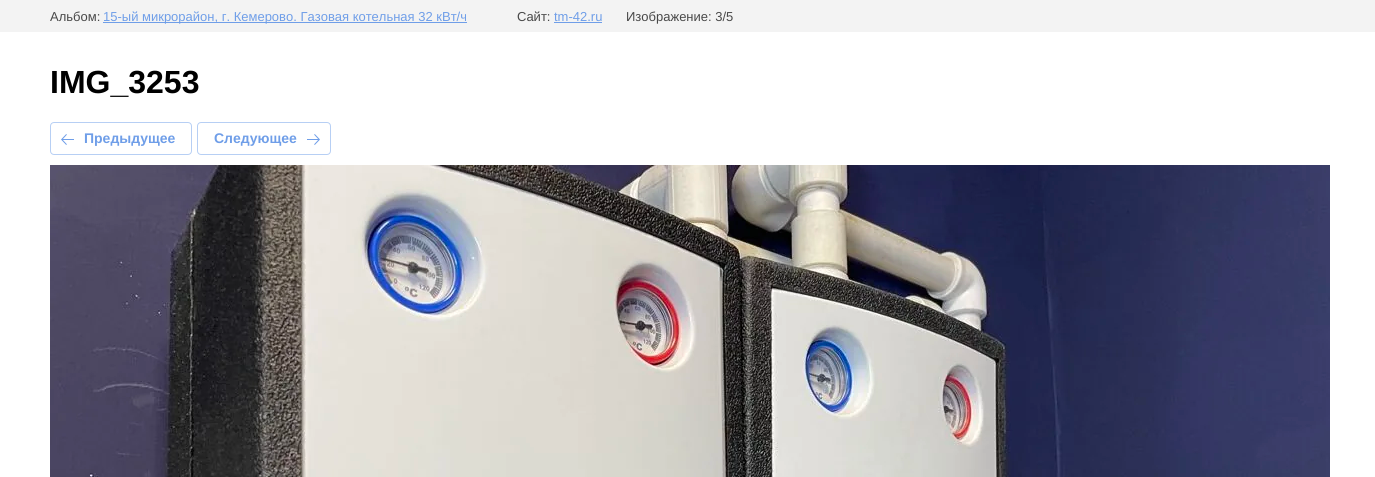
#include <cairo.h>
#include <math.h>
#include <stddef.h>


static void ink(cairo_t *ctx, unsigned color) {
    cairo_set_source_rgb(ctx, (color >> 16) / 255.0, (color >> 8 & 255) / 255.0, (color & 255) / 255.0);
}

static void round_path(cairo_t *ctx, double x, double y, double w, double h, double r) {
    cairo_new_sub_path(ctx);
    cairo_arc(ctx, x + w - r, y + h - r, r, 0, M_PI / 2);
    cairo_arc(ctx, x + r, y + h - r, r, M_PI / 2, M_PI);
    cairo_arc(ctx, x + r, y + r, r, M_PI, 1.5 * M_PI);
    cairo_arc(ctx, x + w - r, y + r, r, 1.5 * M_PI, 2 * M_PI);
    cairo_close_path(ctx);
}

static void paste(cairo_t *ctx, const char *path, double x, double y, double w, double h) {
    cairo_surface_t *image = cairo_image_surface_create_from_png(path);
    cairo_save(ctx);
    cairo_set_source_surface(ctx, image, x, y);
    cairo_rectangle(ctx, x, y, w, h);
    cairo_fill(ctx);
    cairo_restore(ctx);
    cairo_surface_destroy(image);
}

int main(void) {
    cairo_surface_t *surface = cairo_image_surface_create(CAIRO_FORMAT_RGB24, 1375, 477);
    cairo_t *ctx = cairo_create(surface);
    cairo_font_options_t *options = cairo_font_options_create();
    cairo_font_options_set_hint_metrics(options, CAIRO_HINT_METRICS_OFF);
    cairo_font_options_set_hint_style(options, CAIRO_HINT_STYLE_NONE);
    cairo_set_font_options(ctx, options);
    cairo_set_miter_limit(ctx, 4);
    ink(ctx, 0xFFFFFF);
    cairo_paint(ctx);
    ink(ctx, 0xF3F3F3);
    cairo_rectangle(ctx, 0, 0, 1375, 32);
    cairo_fill(ctx);
    cairo_select_font_face(ctx, "Liberation Sans", CAIRO_FONT_SLANT_NORMAL, CAIRO_FONT_WEIGHT_NORMAL);
    cairo_set_font_size(ctx, 13);
    ink(ctx, 0x484848);
    cairo_move_to(ctx, 50, 21);
    cairo_show_text(ctx, "Альбом:");
    ink(ctx, 0x6F9EE8);
    cairo_rectangle(ctx, 103, 22, 364, 1);
    cairo_fill(ctx);
    cairo_move_to(ctx, 103, 21);
    cairo_show_text(ctx, "15-ый микрорайон, г. Кемерово. Газовая котельная 32 кВт/ч");
    ink(ctx, 0x484848);
    cairo_move_to(ctx, 517, 21);
    cairo_show_text(ctx, "Сайт:");
    ink(ctx, 0x6F9EE8);
    cairo_move_to(ctx, 554, 21);
    cairo_show_text(ctx, "tm-42.ru");
    cairo_rectangle(ctx, 554, 22, 48, 1);
    cairo_fill(ctx);
    ink(ctx, 0x484848);
    cairo_move_to(ctx, 626, 21);
    cairo_show_text(ctx, "Изображение: 3/5");
    cairo_select_font_face(ctx, "Liberation Sans", CAIRO_FONT_SLANT_NORMAL, CAIRO_FONT_WEIGHT_BOLD);
    cairo_set_font_size(ctx, 32);
    ink(ctx, 0x000000);
    cairo_move_to(ctx, 50, 93);
    cairo_show_text(ctx, "IMG_3253");
    round_path(ctx, 50.5, 122.5, 141, 32, 3.5);
    ink(ctx, 0xB7CFF4);
    cairo_set_line_width(ctx, 1);
    cairo_stroke(ctx);
    paste(ctx, "media/1.png", 61, 134, 13, 11);
    cairo_set_font_size(ctx, 14);
    ink(ctx, 0x6F9EE8);
    cairo_move_to(ctx, 84, 143);
    cairo_show_text(ctx, "Предыдущее");
    round_path(ctx, 197.5, 122.5, 133, 32, 3.5);
    ink(ctx, 0xB7CFF4);
    cairo_stroke(ctx);
    ink(ctx, 0x6F9EE8);
    cairo_move_to(ctx, 214, 143);
    cairo_show_text(ctx, "Следующее");
    paste(ctx, "media/2.png", 307, 134, 13, 11);
    paste(ctx, "media/3.png", 50, 165, 1280, 312);
    cairo_surface_write_to_png(surface, "image.png");
    cairo_font_options_destroy(options);
    cairo_destroy(ctx);
    cairo_surface_destroy(surface);
    return 0;
}
